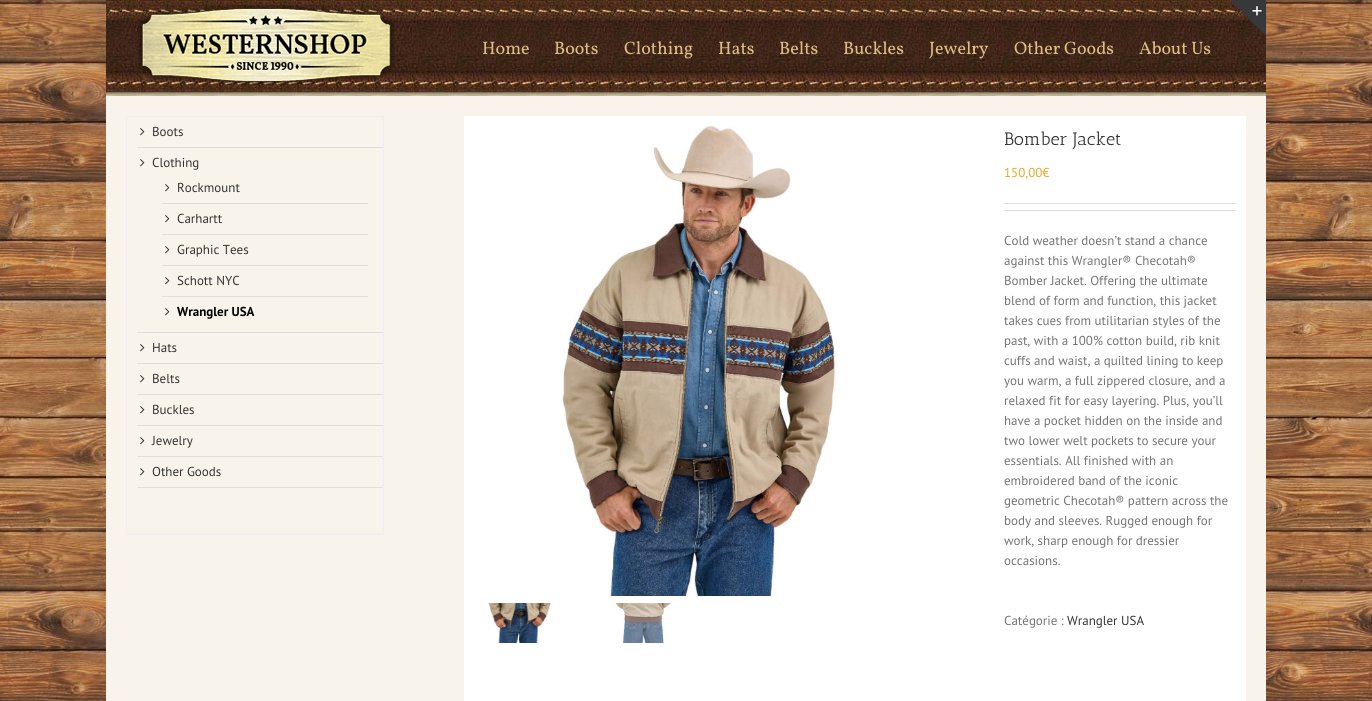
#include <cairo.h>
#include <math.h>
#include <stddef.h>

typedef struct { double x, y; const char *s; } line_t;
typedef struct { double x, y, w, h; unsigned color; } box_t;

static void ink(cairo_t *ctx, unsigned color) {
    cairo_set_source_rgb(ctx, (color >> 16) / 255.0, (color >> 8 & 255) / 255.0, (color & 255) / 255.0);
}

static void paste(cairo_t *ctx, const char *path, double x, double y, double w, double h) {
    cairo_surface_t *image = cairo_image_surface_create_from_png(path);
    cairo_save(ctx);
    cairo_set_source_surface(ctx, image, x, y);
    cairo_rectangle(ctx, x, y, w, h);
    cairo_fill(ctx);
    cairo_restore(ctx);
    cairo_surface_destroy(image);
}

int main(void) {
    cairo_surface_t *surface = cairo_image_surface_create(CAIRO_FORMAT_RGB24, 1372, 701);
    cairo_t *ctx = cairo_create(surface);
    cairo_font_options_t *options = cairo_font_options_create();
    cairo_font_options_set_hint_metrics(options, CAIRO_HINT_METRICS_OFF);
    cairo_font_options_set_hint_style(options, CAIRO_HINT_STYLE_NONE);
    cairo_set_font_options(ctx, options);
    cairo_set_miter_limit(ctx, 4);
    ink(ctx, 0xFFFFFF);
    cairo_paint(ctx);
    paste(ctx, "media/1.png", 0, 0, 1372, 701);
    paste(ctx, "media/3.png", 106, 0, 1160, 96);
    ink(ctx, 0x363839);
    cairo_new_path(ctx);
    cairo_move_to(ctx, 1230, 0);
    cairo_line_to(ctx, 1266, 0);
    cairo_line_to(ctx, 1266, 36);
    cairo_close_path(ctx);
    cairo_fill(ctx);
    paste(ctx, "media/2.png", 1252, 6, 10, 10);
    paste(ctx, "media/4.png", 137, 5, 258, 80);
    cairo_select_font_face(ctx, "Vollkorn", CAIRO_FONT_SLANT_NORMAL, CAIRO_FONT_WEIGHT_NORMAL);
    cairo_set_font_size(ctx, 18);
    ink(ctx, 0xDFBE86);
    {
        static const line_t items[] = {
            {482, 54, "Home"},
            {554, 54, "Boots"},
            {624, 54, "Clothing"},
            {718, 54, "Hats"},
            {779, 54, "Belts"},
            {843, 54, "Buckles"},
            {929, 54, "Jewelry"},
            {1014, 54, "Other Goods"},
            {1139, 54, "About Us"},
        };
        for (size_t i = 0; i < sizeof items / sizeof *items; i++) {
            cairo_move_to(ctx, items[i].x, items[i].y);
            cairo_show_text(ctx, items[i].s);
        }
    }
    {
        static const box_t items[] = {
            {106, 96, 1160, 605, 0xF8F4EB},
            {126, 116, 258, 1, 0xEFEFEF},
            {383, 116, 1, 419, 0xEFEFEF},
            {126, 533, 258, 2, 0xEFEFEF},
            {126, 116, 1, 419, 0xEFEFEF},
            {137, 147, 246, 1, 0xE0DEDE},
        };
        for (size_t i = 0; i < sizeof items / sizeof *items; i++) {
            ink(ctx, items[i].color);
            cairo_rectangle(ctx, items[i].x, items[i].y, items[i].w, items[i].h);
            cairo_fill(ctx);
        }
    }
    paste(ctx, "media/5.png", 140, 128, 5, 8);
    cairo_select_font_face(ctx, "PT Sans", CAIRO_FONT_SLANT_NORMAL, CAIRO_FONT_WEIGHT_NORMAL);
    cairo_set_font_size(ctx, 13);
    ink(ctx, 0x333333);
    cairo_move_to(ctx, 152, 136);
    cairo_show_text(ctx, "Boots");
    ink(ctx, 0xE0DEDE);
    cairo_rectangle(ctx, 137, 332, 246, 1);
    cairo_fill(ctx);
    paste(ctx, "media/5.png", 140, 159, 5, 8);
    ink(ctx, 0x333333);
    cairo_move_to(ctx, 152, 167);
    cairo_show_text(ctx, "Clothing");
    ink(ctx, 0xE0DEDE);
    cairo_rectangle(ctx, 162, 203, 206, 1);
    cairo_fill(ctx);
    paste(ctx, "media/5.png", 165, 184, 5, 8);
    ink(ctx, 0x333333);
    cairo_move_to(ctx, 177, 192);
    cairo_show_text(ctx, "Rockmount");
    ink(ctx, 0xE0DEDE);
    cairo_rectangle(ctx, 162, 234, 206, 1);
    cairo_fill(ctx);
    paste(ctx, "media/5.png", 165, 215, 5, 8);
    ink(ctx, 0x333333);
    cairo_move_to(ctx, 177, 223);
    cairo_show_text(ctx, "Carhartt");
    ink(ctx, 0xE0DEDE);
    cairo_rectangle(ctx, 162, 265, 206, 1);
    cairo_fill(ctx);
    paste(ctx, "media/5.png", 165, 246, 5, 8);
    ink(ctx, 0x333333);
    cairo_move_to(ctx, 177, 254);
    cairo_show_text(ctx, "Graphic Tees");
    ink(ctx, 0xE0DEDE);
    cairo_rectangle(ctx, 162, 296, 206, 1);
    cairo_fill(ctx);
    paste(ctx, "media/5.png", 165, 277, 5, 8);
    ink(ctx, 0x333333);
    cairo_move_to(ctx, 177, 285);
    cairo_show_text(ctx, "Schott NYC");
    paste(ctx, "media/5.png", 165, 308, 5, 8);
    cairo_select_font_face(ctx, "PT Sans", CAIRO_FONT_SLANT_NORMAL, CAIRO_FONT_WEIGHT_BOLD);
    ink(ctx, 0x000000);
    cairo_move_to(ctx, 177, 316);
    cairo_show_text(ctx, "Wrangler USA");
    ink(ctx, 0xE0DEDE);
    cairo_rectangle(ctx, 137, 363, 246, 1);
    cairo_fill(ctx);
    paste(ctx, "media/5.png", 140, 344, 5, 8);
    cairo_select_font_face(ctx, "PT Sans", CAIRO_FONT_SLANT_NORMAL, CAIRO_FONT_WEIGHT_NORMAL);
    ink(ctx, 0x333333);
    cairo_move_to(ctx, 152, 352);
    cairo_show_text(ctx, "Hats");
    ink(ctx, 0xE0DEDE);
    cairo_rectangle(ctx, 137, 394, 246, 1);
    cairo_fill(ctx);
    paste(ctx, "media/5.png", 140, 375, 5, 8);
    ink(ctx, 0x333333);
    cairo_move_to(ctx, 152, 383);
    cairo_show_text(ctx, "Belts");
    ink(ctx, 0xE0DEDE);
    cairo_rectangle(ctx, 137, 425, 246, 1);
    cairo_fill(ctx);
    paste(ctx, "media/5.png", 140, 406, 5, 8);
    ink(ctx, 0x333333);
    cairo_move_to(ctx, 152, 414);
    cairo_show_text(ctx, "Buckles");
    ink(ctx, 0xE0DEDE);
    cairo_rectangle(ctx, 137, 456, 246, 1);
    cairo_fill(ctx);
    paste(ctx, "media/5.png", 140, 437, 5, 8);
    ink(ctx, 0x333333);
    cairo_move_to(ctx, 152, 445);
    cairo_show_text(ctx, "Jewelry");
    ink(ctx, 0xE0DEDE);
    cairo_rectangle(ctx, 137, 487, 246, 1);
    cairo_fill(ctx);
    paste(ctx, "media/5.png", 140, 468, 5, 8);
    ink(ctx, 0x333333);
    cairo_move_to(ctx, 152, 476);
    cairo_show_text(ctx, "Other Goods");
    ink(ctx, 0xFFFFFF);
    cairo_rectangle(ctx, 464, 116, 782, 585);
    cairo_fill(ctx);
    paste(ctx, "media/6.png", 562, 124, 275, 472);
    paste(ctx, "media/7.png", 488, 603, 63, 40);
    paste(ctx, "media/8.png", 615, 603, 57, 40);
    cairo_select_font_face(ctx, "Antic Slab", CAIRO_FONT_SLANT_NORMAL, CAIRO_FONT_WEIGHT_NORMAL);
    cairo_set_font_size(ctx, 18);
    ink(ctx, 0x333333);
    cairo_move_to(ctx, 1004, 145);
    cairo_show_text(ctx, "Bomber Jacket");
    cairo_select_font_face(ctx, "PT Sans", CAIRO_FONT_SLANT_NORMAL, CAIRO_FONT_WEIGHT_NORMAL);
    cairo_set_font_size(ctx, 13);
    ink(ctx, 0xE9A825);
    cairo_move_to(ctx, 1004, 177);
    cairo_show_text(ctx, "150,00€");
    ink(ctx, 0xE0DEDE);
    cairo_rectangle(ctx, 1004, 203, 232, 1);
    cairo_fill(ctx);
    cairo_rectangle(ctx, 1004, 210, 232, 1);
    cairo_fill(ctx);
    ink(ctx, 0x747474);
    {
        static const line_t items[] = {
            {1004, 245, "Cold weather doesn’t stand a chance"},
            {1004, 265, "against this Wrangler® Checotah®"},
            {1004, 285, "Bomber Jacket. Offering the ultimate"},
            {1004, 305, "blend of form and function, this jacket"},
            {1004, 325, "takes cues from utilitarian styles of the"},
            {1004, 345, "past, with a 100% cotton build, rib knit"},
            {1004, 365, "cuffs and waist, a quilted lining to keep"},
            {1004, 385, "you warm, a full zippered closure, and a"},
            {1004, 405, "relaxed fit for easy layering. Plus, you’ll"},
            {1004, 425, "have a pocket hidden on the inside and"},
            {1004, 445, "two lower welt pockets to secure your"},
            {1004, 465, "essentials. All finished with an"},
            {1004, 485, "embroidered band of the iconic"},
            {1004, 505, "geometric Checotah® pattern across the"},
            {1004, 525, "body and sleeves. Rugged enough for"},
            {1004, 545, "work, sharp enough for dressier"},
            {1004, 565, "occasions."},
            {1004, 625, "Catégorie :"},
        };
        for (size_t i = 0; i < sizeof items / sizeof *items; i++) {
            cairo_move_to(ctx, items[i].x, items[i].y);
            cairo_show_text(ctx, items[i].s);
        }
    }
    ink(ctx, 0x333333);
    cairo_move_to(ctx, 1067, 625);
    cairo_show_text(ctx, "Wrangler USA");
    cairo_surface_write_to_png(surface, "image.png");
    cairo_font_options_destroy(options);
    cairo_destroy(ctx);
    cairo_surface_destroy(surface);
    return 0;
}
